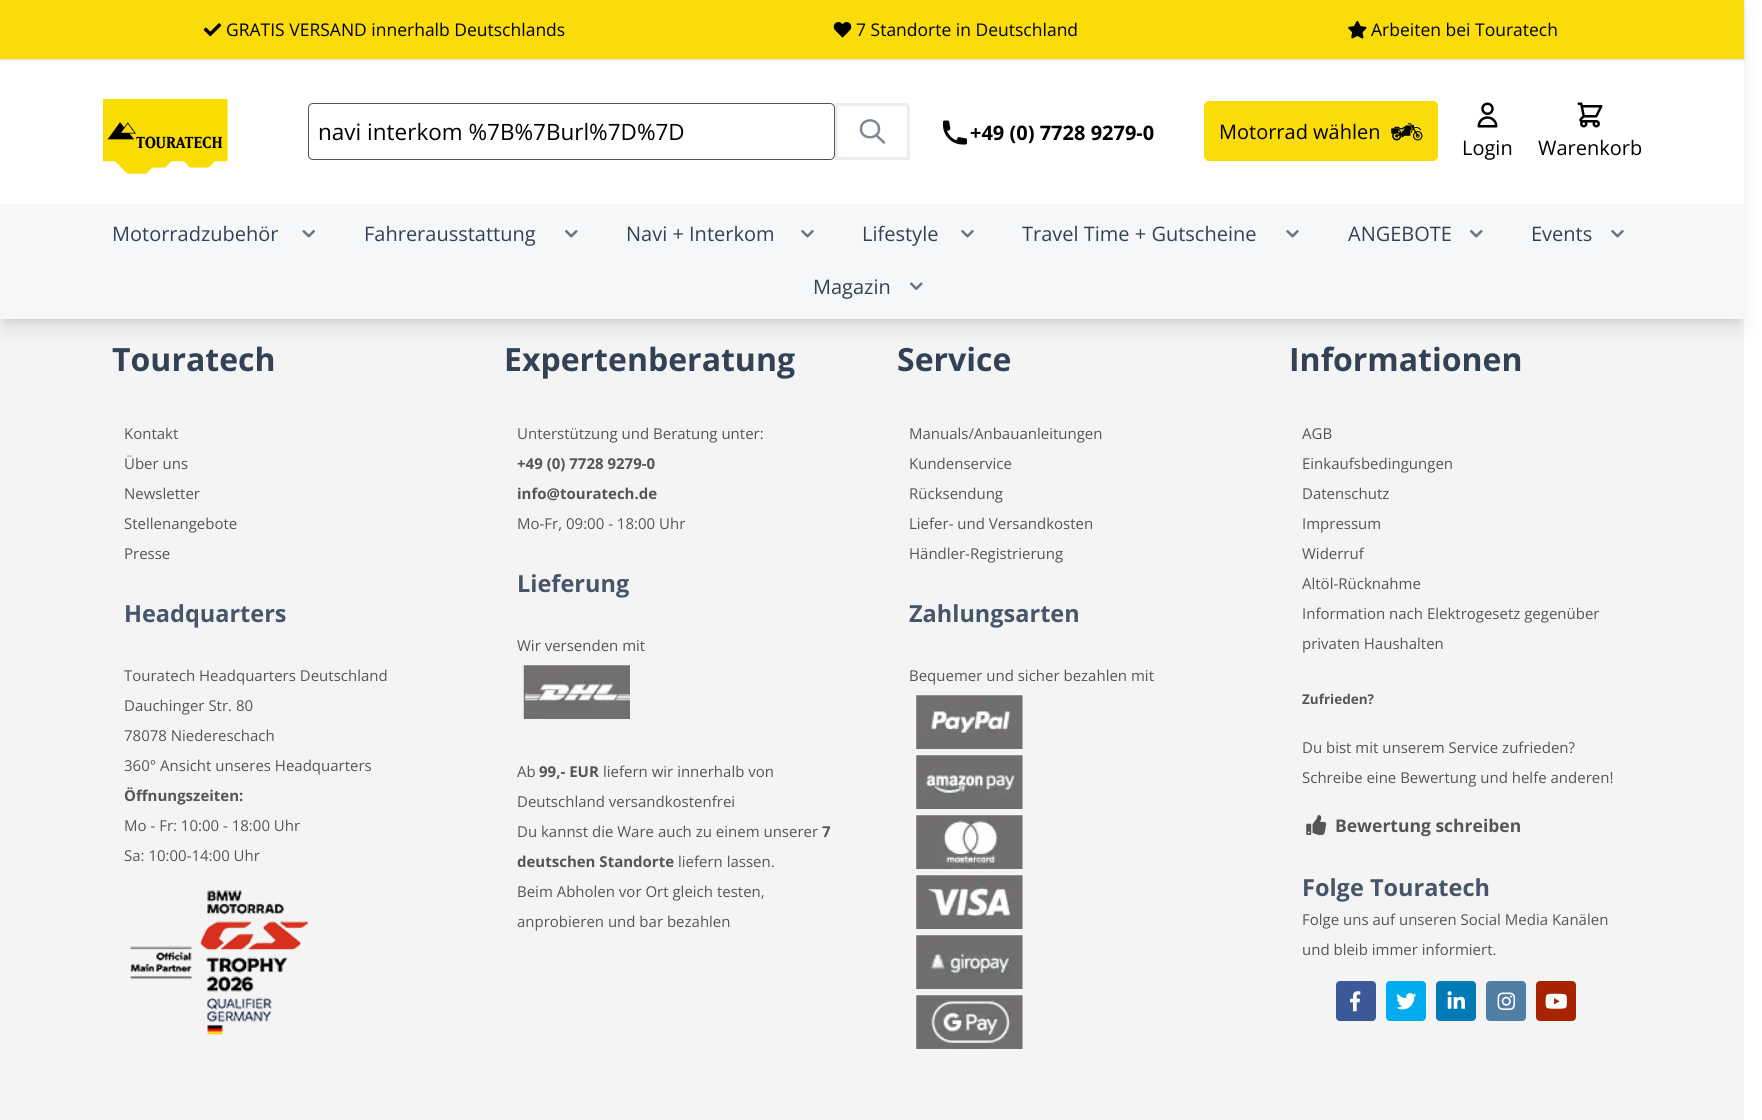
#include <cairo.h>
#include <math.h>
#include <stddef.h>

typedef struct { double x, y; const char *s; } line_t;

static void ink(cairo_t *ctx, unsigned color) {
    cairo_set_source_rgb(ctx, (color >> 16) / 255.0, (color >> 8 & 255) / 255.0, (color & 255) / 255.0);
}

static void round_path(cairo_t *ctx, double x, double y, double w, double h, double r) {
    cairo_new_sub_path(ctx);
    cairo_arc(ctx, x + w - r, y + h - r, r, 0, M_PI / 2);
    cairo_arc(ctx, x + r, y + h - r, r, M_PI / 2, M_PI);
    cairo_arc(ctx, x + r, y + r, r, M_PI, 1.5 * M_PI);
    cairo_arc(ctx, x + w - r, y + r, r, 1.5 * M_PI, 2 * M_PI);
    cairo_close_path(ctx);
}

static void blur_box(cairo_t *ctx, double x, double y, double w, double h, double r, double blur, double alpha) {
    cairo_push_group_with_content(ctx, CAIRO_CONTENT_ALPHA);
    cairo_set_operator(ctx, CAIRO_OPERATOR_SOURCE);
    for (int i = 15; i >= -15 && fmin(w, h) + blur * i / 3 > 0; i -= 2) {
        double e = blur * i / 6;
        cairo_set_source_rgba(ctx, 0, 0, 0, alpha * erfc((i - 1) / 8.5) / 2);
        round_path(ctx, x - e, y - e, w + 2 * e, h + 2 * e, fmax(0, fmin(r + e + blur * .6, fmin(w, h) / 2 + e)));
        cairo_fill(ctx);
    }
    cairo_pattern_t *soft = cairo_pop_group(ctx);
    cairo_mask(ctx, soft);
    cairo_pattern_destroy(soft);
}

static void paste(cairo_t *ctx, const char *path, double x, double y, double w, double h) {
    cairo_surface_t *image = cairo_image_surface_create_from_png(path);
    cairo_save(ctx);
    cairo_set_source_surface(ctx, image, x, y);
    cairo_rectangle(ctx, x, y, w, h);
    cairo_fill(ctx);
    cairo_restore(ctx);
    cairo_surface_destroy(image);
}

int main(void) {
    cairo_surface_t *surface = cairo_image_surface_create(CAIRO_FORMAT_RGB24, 1762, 1120);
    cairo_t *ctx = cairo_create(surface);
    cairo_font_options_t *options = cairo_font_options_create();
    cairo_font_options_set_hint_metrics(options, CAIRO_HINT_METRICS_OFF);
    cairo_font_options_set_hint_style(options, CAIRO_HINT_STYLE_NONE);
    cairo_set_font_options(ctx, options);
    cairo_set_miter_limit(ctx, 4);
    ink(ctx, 0xFFFFFF);
    cairo_paint(ctx);
    ink(ctx, 0xF4F4F5);
    cairo_rectangle(ctx, 0, 319, 1744, 801);
    cairo_fill(ctx);
    ink(ctx, 0x000000);
    blur_box(ctx, 5, 9, 1734, 310, 0, 4, 0.1);
    blur_box(ctx, 4, 15, 1736, 313, 0, 9.5, 0.1);
    ink(ctx, 0xFFFFFF);
    cairo_rectangle(ctx, 0, 59, 1744, 145);
    cairo_fill(ctx);
    ink(ctx, 0x000000);
    blur_box(ctx, 1, 1, 1742, 58, 0, 1, 0.1);
    blur_box(ctx, 0, 0, 1744, 60, 0, 2, 0.1);
    ink(ctx, 0xF9DC0A);
    cairo_rectangle(ctx, 0, 0, 1744, 59);
    cairo_fill(ctx);
    paste(ctx, "media/1.png", 203, 23, 19, 14);
    cairo_select_font_face(ctx, "Open Sans", CAIRO_FONT_SLANT_NORMAL, CAIRO_FONT_WEIGHT_NORMAL);
    cairo_set_font_size(ctx, 17.5);
    ink(ctx, 0x000000);
    cairo_move_to(ctx, 226, 36);
    cairo_show_text(ctx, "GRATIS VERSAND innerhalb Deutschlands");
    paste(ctx, "media/2.png", 833, 22, 19, 16);
    cairo_move_to(ctx, 856, 36);
    cairo_show_text(ctx, "7 Standorte in Deutschland");
    paste(ctx, "media/3.png", 1348, 21, 19, 18);
    cairo_move_to(ctx, 1371, 36);
    cairo_show_text(ctx, "Arbeiten bei Touratech");
    paste(ctx, "media/4.png", 103, 99, 125, 75);
    round_path(ctx, 308.5, 103.5, 526, 56, 4.5);
    ink(ctx, 0x4B5563);
    cairo_set_line_width(ctx, 1);
    cairo_stroke(ctx);
    cairo_set_font_size(ctx, 22.5);
    ink(ctx, 0x000000);
    cairo_move_to(ctx, 318, 140);
    cairo_show_text(ctx, "navi interkom %7B%7Burl%7D%7D");
    cairo_new_path(ctx);
    cairo_move_to(ctx, 836.5, 104.5);
    cairo_line_to(ctx, 905, 104.5);
    cairo_curve_to(ctx, 907, 104.5, 908.5, 106, 908.5, 108);
    cairo_line_to(ctx, 908.5, 158.5);
    cairo_line_to(ctx, 836.5, 158.5);
    cairo_close_path(ctx);
    ink(ctx, 0xEDEEF1);
    cairo_set_line_width(ctx, 3);
    cairo_stroke(ctx);
    cairo_new_path(ctx);
    cairo_move_to(ctx, 884, 142.5);
    cairo_line_to(ctx, 876, 135);
    cairo_move_to(ctx, 879, 129);
    cairo_curve_to(ctx, 879, 140, 861, 140, 861, 129);
    cairo_curve_to(ctx, 861, 117.5, 879, 117.5, 879, 129);
    cairo_close_path(ctx);
    ink(ctx, 0x818892);
    cairo_set_line_width(ctx, 2.5);
    cairo_set_line_cap(ctx, CAIRO_LINE_CAP_ROUND);
    cairo_set_line_join(ctx, CAIRO_LINE_JOIN_ROUND);
    cairo_stroke(ctx);
    paste(ctx, "media/5.png", 943, 120, 24, 25);
    cairo_select_font_face(ctx, "Open Sans", CAIRO_FONT_SLANT_NORMAL, CAIRO_FONT_WEIGHT_BOLD);
    cairo_set_font_size(ctx, 20);
    ink(ctx, 0x000000);
    cairo_move_to(ctx, 970, 140);
    cairo_show_text(ctx, "+49 (0) 7728 9279-0");
    ink(ctx, 0xF9DC0A);
    round_path(ctx, 1204, 101, 234, 60, 5);
    cairo_fill(ctx);
    cairo_select_font_face(ctx, "Open Sans", CAIRO_FONT_SLANT_NORMAL, CAIRO_FONT_WEIGHT_NORMAL);
    ink(ctx, 0x000000);
    cairo_move_to(ctx, 1219, 139);
    cairo_show_text(ctx, "Motorrad wählen");
    paste(ctx, "media/6.png", 1391, 123, 32, 18);
    paste(ctx, "media/7.png", 1477, 102, 21, 26);
    cairo_move_to(ctx, 1462, 155);
    cairo_show_text(ctx, "Login");
    paste(ctx, "media/8.png", 1577, 102, 26, 26);
    cairo_move_to(ctx, 1538, 155);
    cairo_show_text(ctx, "Warenkorb");
    ink(ctx, 0xF6F7F8);
    cairo_rectangle(ctx, 0, 204, 1744, 115);
    cairo_fill(ctx);
    ink(ctx, 0x334155);
    cairo_move_to(ctx, 112, 241);
    cairo_show_text(ctx, "Motorradzubehör");
    paste(ctx, "media/9.png", 302, 230, 13, 8);
    cairo_move_to(ctx, 364, 241);
    cairo_show_text(ctx, "Fahrerausstattung");
    paste(ctx, "media/10.png", 565, 230, 13, 8);
    cairo_move_to(ctx, 626, 241);
    cairo_show_text(ctx, "Navi + Interkom");
    paste(ctx, "media/11.png", 801, 230, 13, 8);
    cairo_move_to(ctx, 862, 241);
    cairo_show_text(ctx, "Lifestyle");
    paste(ctx, "media/11.png", 961, 230, 13, 8);
    cairo_move_to(ctx, 1022, 241);
    cairo_show_text(ctx, "Travel Time + Gutscheine");
    paste(ctx, "media/11.png", 1286, 230, 13, 8);
    cairo_move_to(ctx, 1348, 241);
    cairo_show_text(ctx, "ANGEBOTE");
    paste(ctx, "media/10.png", 1470, 230, 13, 8);
    cairo_move_to(ctx, 1531, 241);
    cairo_show_text(ctx, "Events");
    paste(ctx, "media/11.png", 1611, 230, 13, 8);
    cairo_move_to(ctx, 813, 294);
    cairo_show_text(ctx, "Magazin");
    paste(ctx, "media/12.png", 910, 282, 13, 8);
    cairo_select_font_face(ctx, "Open Sans", CAIRO_FONT_SLANT_NORMAL, CAIRO_FONT_WEIGHT_BOLD);
    cairo_set_font_size(ctx, 32);
    cairo_move_to(ctx, 112, 371);
    cairo_show_text(ctx, "Touratech");
    cairo_select_font_face(ctx, "Open Sans", CAIRO_FONT_SLANT_NORMAL, CAIRO_FONT_WEIGHT_NORMAL);
    cairo_set_font_size(ctx, 15);
    ink(ctx, 0x555555);
    {
        static const line_t items[] = {
            {124, 439, "Kontakt"},
            {124, 469, "Über uns"},
            {124, 499, "Newsletter"},
            {124, 529, "Stellenangebote"},
            {124, 559, "Presse"},
        };
        for (size_t i = 0; i < sizeof items / sizeof *items; i++) {
            cairo_move_to(ctx, items[i].x, items[i].y);
            cairo_show_text(ctx, items[i].s);
        }
    }
    cairo_select_font_face(ctx, "Open Sans", CAIRO_FONT_SLANT_NORMAL, CAIRO_FONT_WEIGHT_BOLD);
    cairo_set_font_size(ctx, 23.5);
    ink(ctx, 0x475569);
    cairo_move_to(ctx, 124, 622);
    cairo_show_text(ctx, "Headquarters");
    cairo_select_font_face(ctx, "Open Sans", CAIRO_FONT_SLANT_NORMAL, CAIRO_FONT_WEIGHT_NORMAL);
    cairo_set_font_size(ctx, 15);
    ink(ctx, 0x555555);
    {
        static const line_t items[] = {
            {124, 681, "Touratech Headquarters Deutschland"},
            {124, 711, "Dauchinger Str. 80"},
            {124, 741, "78078 Niedereschach"},
            {124, 771, "360° Ansicht unseres Headquarters"},
        };
        for (size_t i = 0; i < sizeof items / sizeof *items; i++) {
            cairo_move_to(ctx, items[i].x, items[i].y);
            cairo_show_text(ctx, items[i].s);
        }
    }
    cairo_select_font_face(ctx, "Open Sans", CAIRO_FONT_SLANT_NORMAL, CAIRO_FONT_WEIGHT_BOLD);
    cairo_move_to(ctx, 124, 801);
    cairo_show_text(ctx, "Öffnungszeiten:");
    cairo_select_font_face(ctx, "Open Sans", CAIRO_FONT_SLANT_NORMAL, CAIRO_FONT_WEIGHT_NORMAL);
    cairo_move_to(ctx, 124, 831);
    cairo_show_text(ctx, "Mo - Fr: 10:00 - 18:00 Uhr");
    cairo_move_to(ctx, 124, 861);
    cairo_show_text(ctx, "Sa: 10:00-14:00 Uhr");
    paste(ctx, "media/13.png", 130, 890, 179, 146);
    cairo_select_font_face(ctx, "Open Sans", CAIRO_FONT_SLANT_NORMAL, CAIRO_FONT_WEIGHT_BOLD);
    cairo_set_font_size(ctx, 32);
    ink(ctx, 0x334155);
    cairo_move_to(ctx, 504, 371);
    cairo_show_text(ctx, "Expertenberatung");
    cairo_select_font_face(ctx, "Open Sans", CAIRO_FONT_SLANT_NORMAL, CAIRO_FONT_WEIGHT_NORMAL);
    cairo_set_font_size(ctx, 15);
    ink(ctx, 0x555555);
    cairo_move_to(ctx, 517, 439);
    cairo_show_text(ctx, "Unterstützung und Beratung unter:");
    cairo_select_font_face(ctx, "Open Sans", CAIRO_FONT_SLANT_NORMAL, CAIRO_FONT_WEIGHT_BOLD);
    cairo_move_to(ctx, 517, 469);
    cairo_show_text(ctx, "+49 (0) 7728 9279-0");
    cairo_move_to(ctx, 517, 499);
    cairo_show_text(ctx, "info@touratech.de");
    cairo_select_font_face(ctx, "Open Sans", CAIRO_FONT_SLANT_NORMAL, CAIRO_FONT_WEIGHT_NORMAL);
    cairo_move_to(ctx, 517, 529);
    cairo_show_text(ctx, "Mo-Fr, 09:00 - 18:00 Uhr");
    cairo_select_font_face(ctx, "Open Sans", CAIRO_FONT_SLANT_NORMAL, CAIRO_FONT_WEIGHT_BOLD);
    cairo_set_font_size(ctx, 23.5);
    ink(ctx, 0x475569);
    cairo_move_to(ctx, 517, 592);
    cairo_show_text(ctx, "Lieferung");
    cairo_select_font_face(ctx, "Open Sans", CAIRO_FONT_SLANT_NORMAL, CAIRO_FONT_WEIGHT_NORMAL);
    cairo_set_font_size(ctx, 15);
    ink(ctx, 0x555555);
    cairo_move_to(ctx, 517, 651);
    cairo_show_text(ctx, "Wir versenden mit");
    paste(ctx, "media/14.png", 523, 665, 107, 54);
    cairo_move_to(ctx, 517, 777);
    cairo_show_text(ctx, "Ab");
    cairo_select_font_face(ctx, "Open Sans", CAIRO_FONT_SLANT_NORMAL, CAIRO_FONT_WEIGHT_BOLD);
    cairo_move_to(ctx, 539, 777);
    cairo_show_text(ctx, "99,- EUR");
    cairo_select_font_face(ctx, "Open Sans", CAIRO_FONT_SLANT_NORMAL, CAIRO_FONT_WEIGHT_NORMAL);
    {
        static const line_t items[] = {
            {603, 777, "liefern wir innerhalb von"},
            {517, 807, "Deutschland versandkostenfrei"},
            {517, 837, "Du kannst die Ware auch zu einem unserer"},
        };
        for (size_t i = 0; i < sizeof items / sizeof *items; i++) {
            cairo_move_to(ctx, items[i].x, items[i].y);
            cairo_show_text(ctx, items[i].s);
        }
    }
    cairo_select_font_face(ctx, "Open Sans", CAIRO_FONT_SLANT_NORMAL, CAIRO_FONT_WEIGHT_BOLD);
    cairo_move_to(ctx, 822, 837);
    cairo_show_text(ctx, "7");
    cairo_move_to(ctx, 517, 867);
    cairo_show_text(ctx, "deutschen Standorte");
    cairo_select_font_face(ctx, "Open Sans", CAIRO_FONT_SLANT_NORMAL, CAIRO_FONT_WEIGHT_NORMAL);
    {
        static const line_t items[] = {
            {678, 867, "liefern lassen."},
            {517, 897, "Beim Abholen vor Ort gleich testen,"},
            {517, 927, "anprobieren und bar bezahlen"},
        };
        for (size_t i = 0; i < sizeof items / sizeof *items; i++) {
            cairo_move_to(ctx, items[i].x, items[i].y);
            cairo_show_text(ctx, items[i].s);
        }
    }
    cairo_select_font_face(ctx, "Open Sans", CAIRO_FONT_SLANT_NORMAL, CAIRO_FONT_WEIGHT_BOLD);
    cairo_set_font_size(ctx, 32);
    ink(ctx, 0x334155);
    cairo_move_to(ctx, 897, 371);
    cairo_show_text(ctx, "Service");
    cairo_select_font_face(ctx, "Open Sans", CAIRO_FONT_SLANT_NORMAL, CAIRO_FONT_WEIGHT_NORMAL);
    cairo_set_font_size(ctx, 15);
    ink(ctx, 0x555555);
    {
        static const line_t items[] = {
            {909, 439, "Manuals/Anbauanleitungen"},
            {909, 469, "Kundenservice"},
            {909, 499, "Rücksendung"},
            {909, 529, "Liefer- und Versandkosten"},
            {909, 559, "Händler-Registrierung"},
        };
        for (size_t i = 0; i < sizeof items / sizeof *items; i++) {
            cairo_move_to(ctx, items[i].x, items[i].y);
            cairo_show_text(ctx, items[i].s);
        }
    }
    cairo_select_font_face(ctx, "Open Sans", CAIRO_FONT_SLANT_NORMAL, CAIRO_FONT_WEIGHT_BOLD);
    cairo_set_font_size(ctx, 23.5);
    ink(ctx, 0x475569);
    cairo_move_to(ctx, 909, 622);
    cairo_show_text(ctx, "Zahlungsarten");
    cairo_select_font_face(ctx, "Open Sans", CAIRO_FONT_SLANT_NORMAL, CAIRO_FONT_WEIGHT_NORMAL);
    cairo_set_font_size(ctx, 15);
    ink(ctx, 0x555555);
    cairo_move_to(ctx, 909, 681);
    cairo_show_text(ctx, "Bequemer und sicher bezahlen mit");
    paste(ctx, "media/15.png", 916, 695, 107, 54);
    paste(ctx, "media/16.png", 916, 755, 107, 54);
    paste(ctx, "media/17.png", 916, 815, 107, 54);
    paste(ctx, "media/18.png", 916, 875, 107, 54);
    paste(ctx, "media/19.png", 916, 935, 107, 54);
    paste(ctx, "media/20.png", 916, 995, 107, 54);
    cairo_select_font_face(ctx, "Open Sans", CAIRO_FONT_SLANT_NORMAL, CAIRO_FONT_WEIGHT_BOLD);
    cairo_set_font_size(ctx, 32);
    ink(ctx, 0x334155);
    cairo_move_to(ctx, 1289, 371);
    cairo_show_text(ctx, "Informationen");
    cairo_select_font_face(ctx, "Open Sans", CAIRO_FONT_SLANT_NORMAL, CAIRO_FONT_WEIGHT_NORMAL);
    cairo_set_font_size(ctx, 15);
    ink(ctx, 0x555555);
    {
        static const line_t items[] = {
            {1302, 439, "AGB"},
            {1302, 469, "Einkaufsbedingungen"},
            {1302, 499, "Datenschutz"},
            {1302, 529, "Impressum"},
            {1302, 559, "Widerruf"},
            {1302, 589, "Altöl-Rücknahme"},
            {1302, 619, "Information nach Elektrogesetz gegenüber"},
            {1302, 649, "privaten Haushalten"},
        };
        for (size_t i = 0; i < sizeof items / sizeof *items; i++) {
            cairo_move_to(ctx, items[i].x, items[i].y);
            cairo_show_text(ctx, items[i].s);
        }
    }
    cairo_select_font_face(ctx, "Open Sans", CAIRO_FONT_SLANT_NORMAL, CAIRO_FONT_WEIGHT_BOLD);
    cairo_set_font_size(ctx, 13.5);
    cairo_move_to(ctx, 1302, 704);
    cairo_show_text(ctx, "Zufrieden?");
    cairo_select_font_face(ctx, "Open Sans", CAIRO_FONT_SLANT_NORMAL, CAIRO_FONT_WEIGHT_NORMAL);
    cairo_set_font_size(ctx, 15);
    cairo_move_to(ctx, 1302, 753);
    cairo_show_text(ctx, "Du bist mit unserem Service zufrieden?");
    cairo_move_to(ctx, 1302, 783);
    cairo_show_text(ctx, "Schreibe eine Bewertung und helfe anderen!");
    paste(ctx, "media/21.png", 1306, 815, 21, 20);
    cairo_select_font_face(ctx, "Open Sans", CAIRO_FONT_SLANT_NORMAL, CAIRO_FONT_WEIGHT_BOLD);
    cairo_set_font_size(ctx, 17.5);
    cairo_move_to(ctx, 1335, 832);
    cairo_show_text(ctx, "Bewertung schreiben");
    cairo_set_font_size(ctx, 23.5);
    ink(ctx, 0x475569);
    cairo_move_to(ctx, 1302, 896);
    cairo_show_text(ctx, "Folge Touratech");
    cairo_select_font_face(ctx, "Open Sans", CAIRO_FONT_SLANT_NORMAL, CAIRO_FONT_WEIGHT_NORMAL);
    cairo_set_font_size(ctx, 15);
    ink(ctx, 0x555555);
    cairo_move_to(ctx, 1302, 925);
    cairo_show_text(ctx, "Folge uns auf unseren Social Media Kanälen");
    cairo_move_to(ctx, 1302, 955);
    cairo_show_text(ctx, "und bleib immer informiert.");
    ink(ctx, 0x3B5998);
    round_path(ctx, 1336, 981, 40, 40, 4);
    cairo_fill(ctx);
    paste(ctx, "media/22.png", 1350, 991, 11, 21);
    ink(ctx, 0x00ACED);
    round_path(ctx, 1386, 981, 40, 40, 4);
    cairo_fill(ctx);
    paste(ctx, "media/23.png", 1396, 993, 21, 17);
    ink(ctx, 0x007BB6);
    round_path(ctx, 1436, 981, 40, 40, 4);
    cairo_fill(ctx);
    paste(ctx, "media/24.png", 1447, 991, 18, 18);
    ink(ctx, 0x517FA4);
    round_path(ctx, 1486, 981, 40, 40, 4);
    cairo_fill(ctx);
    paste(ctx, "media/25.png", 1497, 992, 19, 18);
    ink(ctx, 0xA82400);
    round_path(ctx, 1536, 981, 40, 40, 4);
    cairo_fill(ctx);
    paste(ctx, "media/26.png", 1545, 993, 22, 16);
    cairo_surface_write_to_png(surface, "image.png");
    cairo_font_options_destroy(options);
    cairo_destroy(ctx);
    cairo_surface_destroy(surface);
    return 0;
}
